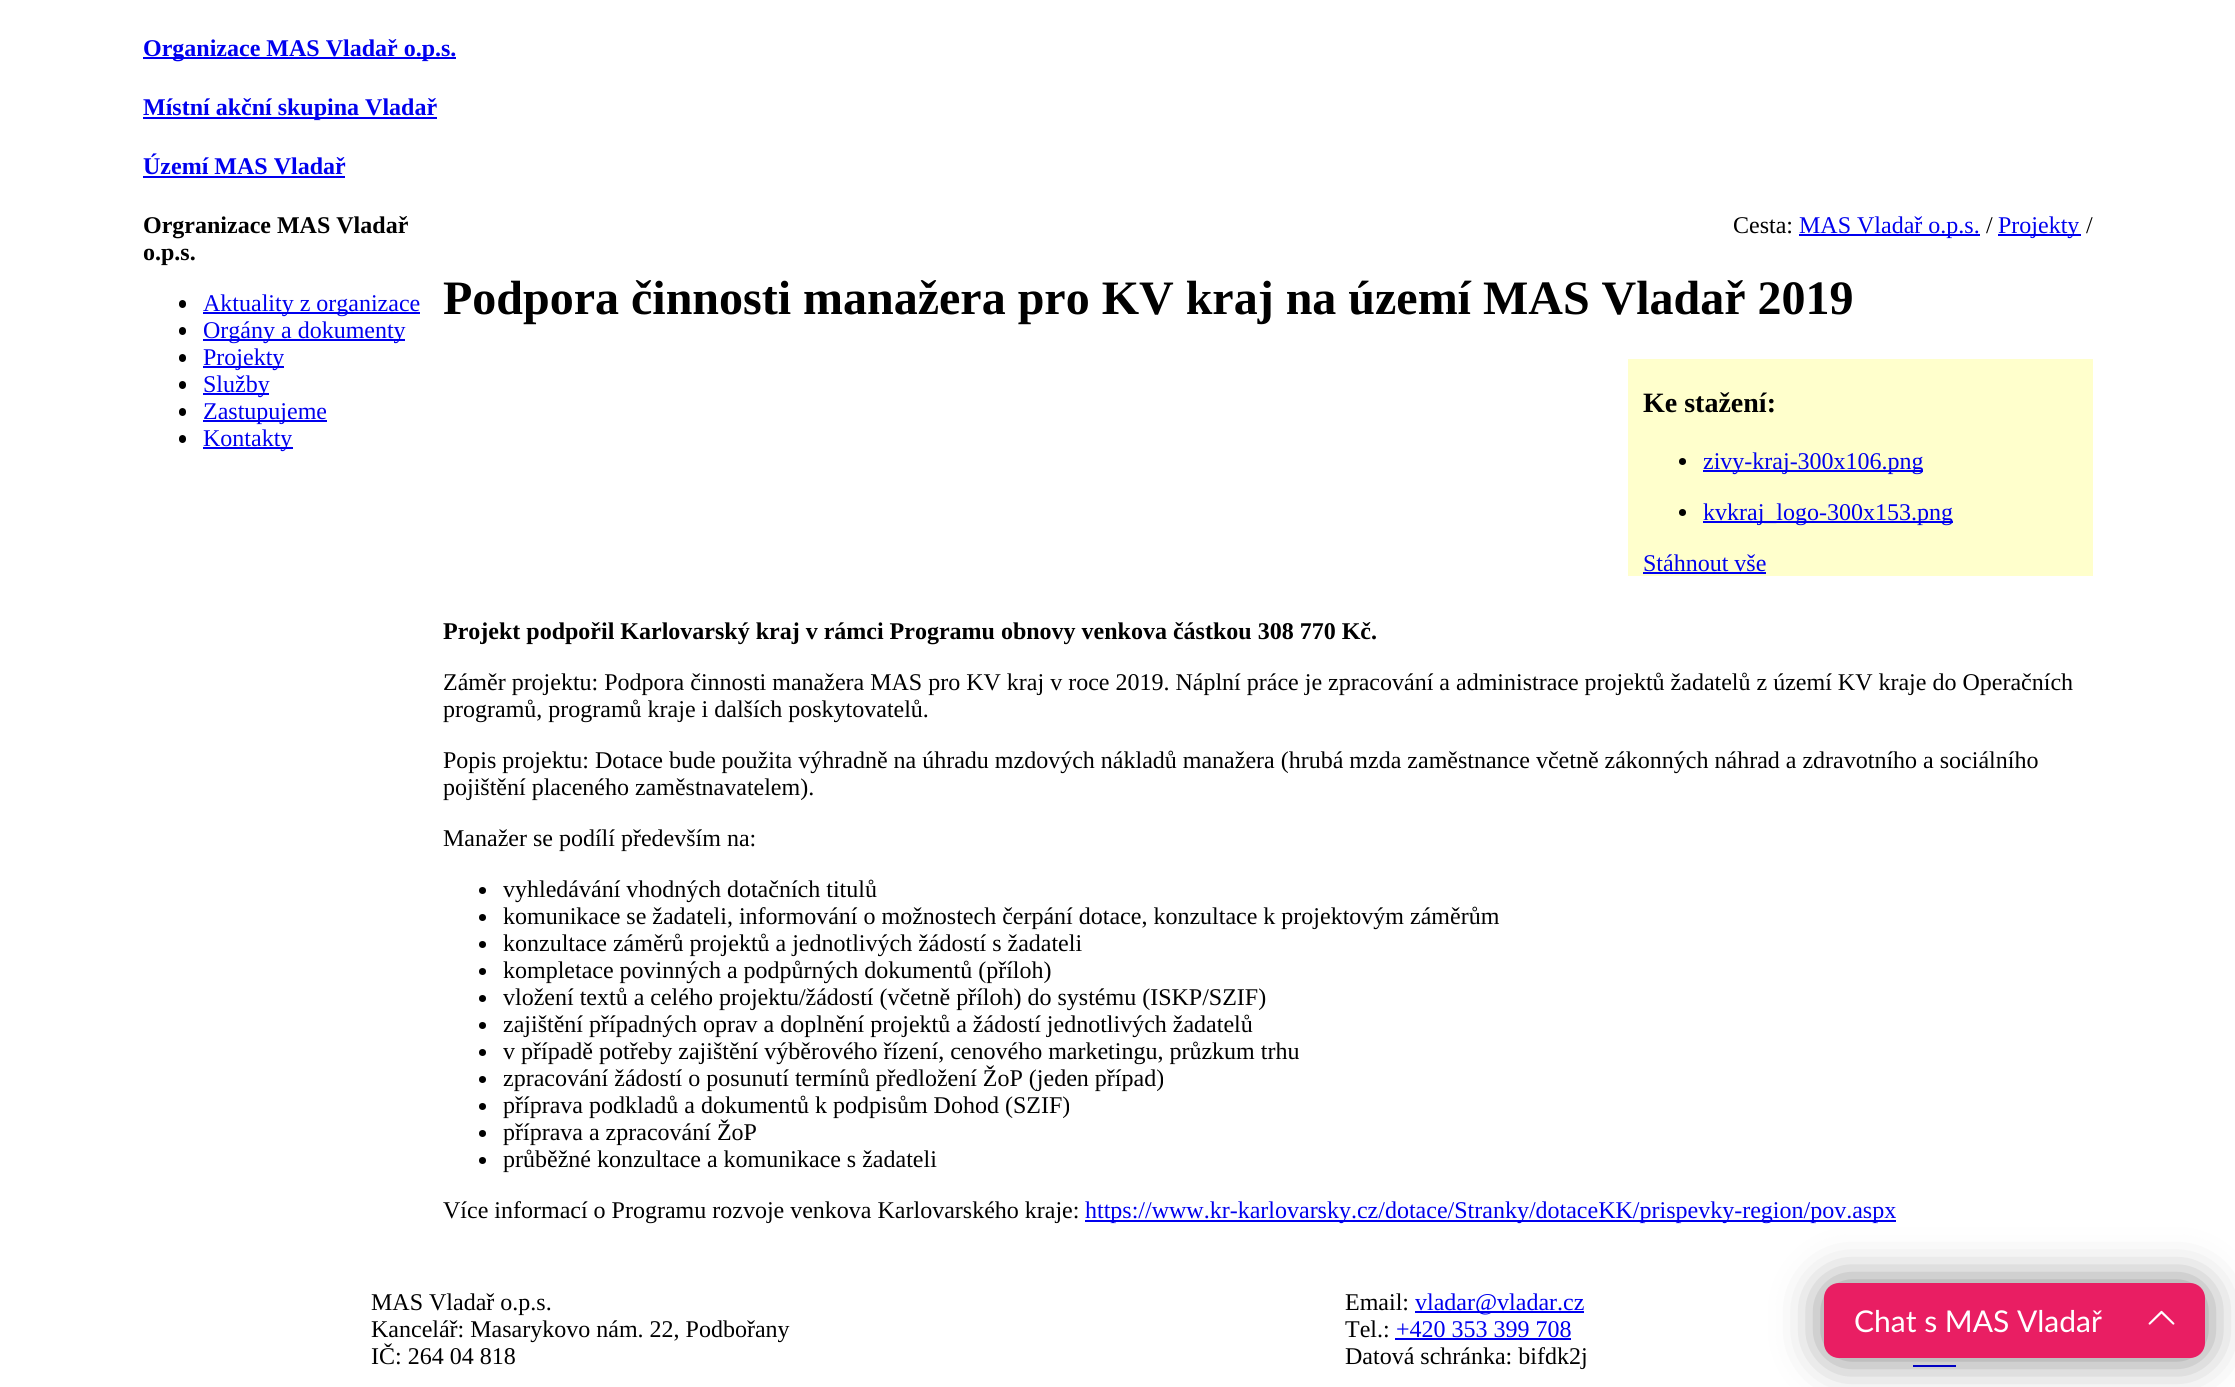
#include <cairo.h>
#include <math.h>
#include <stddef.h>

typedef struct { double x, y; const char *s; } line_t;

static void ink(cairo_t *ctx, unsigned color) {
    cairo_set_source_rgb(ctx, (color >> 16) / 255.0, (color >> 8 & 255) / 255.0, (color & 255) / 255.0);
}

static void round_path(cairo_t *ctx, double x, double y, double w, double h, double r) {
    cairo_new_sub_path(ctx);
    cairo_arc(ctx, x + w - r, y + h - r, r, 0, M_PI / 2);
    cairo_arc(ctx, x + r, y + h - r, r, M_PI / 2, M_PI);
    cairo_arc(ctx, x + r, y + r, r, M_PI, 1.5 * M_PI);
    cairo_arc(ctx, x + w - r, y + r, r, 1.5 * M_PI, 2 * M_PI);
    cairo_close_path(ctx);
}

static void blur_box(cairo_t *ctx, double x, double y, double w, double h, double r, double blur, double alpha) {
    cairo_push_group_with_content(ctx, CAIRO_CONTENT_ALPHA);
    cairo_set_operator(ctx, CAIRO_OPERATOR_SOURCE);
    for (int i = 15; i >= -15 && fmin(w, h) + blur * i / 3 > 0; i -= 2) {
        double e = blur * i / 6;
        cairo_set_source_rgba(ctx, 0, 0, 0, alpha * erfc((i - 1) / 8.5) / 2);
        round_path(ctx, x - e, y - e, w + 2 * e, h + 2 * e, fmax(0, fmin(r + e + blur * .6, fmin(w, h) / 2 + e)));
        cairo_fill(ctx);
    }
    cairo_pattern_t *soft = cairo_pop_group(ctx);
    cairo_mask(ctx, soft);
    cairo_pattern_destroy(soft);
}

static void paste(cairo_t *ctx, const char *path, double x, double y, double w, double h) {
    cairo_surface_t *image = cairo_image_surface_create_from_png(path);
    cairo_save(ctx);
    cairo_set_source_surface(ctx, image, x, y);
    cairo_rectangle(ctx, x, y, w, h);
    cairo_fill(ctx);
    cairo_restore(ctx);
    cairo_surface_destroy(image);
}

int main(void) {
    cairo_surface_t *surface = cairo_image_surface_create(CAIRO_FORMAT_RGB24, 2235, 1387);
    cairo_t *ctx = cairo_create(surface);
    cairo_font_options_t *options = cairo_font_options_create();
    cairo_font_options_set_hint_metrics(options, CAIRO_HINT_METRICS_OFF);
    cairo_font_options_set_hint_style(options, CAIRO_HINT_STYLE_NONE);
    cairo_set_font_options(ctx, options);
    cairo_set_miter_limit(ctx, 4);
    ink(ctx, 0xFFFFFF);
    cairo_paint(ctx);
    ink(ctx, 0x0000EE);
    cairo_rectangle(ctx, 143, 57, 313, 2);
    cairo_fill(ctx);
    cairo_select_font_face(ctx, "Liberation Serif", CAIRO_FONT_SLANT_NORMAL, CAIRO_FONT_WEIGHT_BOLD);
    cairo_set_font_size(ctx, 24);
    cairo_move_to(ctx, 143, 56);
    cairo_show_text(ctx, "Organizace MAS Vladař o.p.s.");
    cairo_rectangle(ctx, 143, 117, 294, 2);
    cairo_fill(ctx);
    cairo_move_to(ctx, 143, 115);
    cairo_show_text(ctx, "Místní akční skupina Vladař");
    cairo_move_to(ctx, 143, 174);
    cairo_show_text(ctx, "Území MAS Vladař");
    cairo_rectangle(ctx, 143, 176, 202, 2);
    cairo_fill(ctx);
    ink(ctx, 0x000000);
    cairo_move_to(ctx, 143, 233);
    cairo_show_text(ctx, "Orgranizace MAS Vladař");
    cairo_move_to(ctx, 143, 260);
    cairo_show_text(ctx, "o.p.s.");
    round_path(ctx, 179, 300, 7, 8, 3.5);
    cairo_fill(ctx);
    ink(ctx, 0x0000EE);
    cairo_rectangle(ctx, 203, 312, 217, 2);
    cairo_fill(ctx);
    cairo_select_font_face(ctx, "Liberation Serif", CAIRO_FONT_SLANT_NORMAL, CAIRO_FONT_WEIGHT_NORMAL);
    cairo_move_to(ctx, 203, 311);
    cairo_show_text(ctx, "Aktuality z organizace");
    ink(ctx, 0x000000);
    round_path(ctx, 179, 327, 7, 8, 3.5);
    cairo_fill(ctx);
    ink(ctx, 0x0000EE);
    cairo_rectangle(ctx, 203, 339, 202, 2);
    cairo_fill(ctx);
    cairo_move_to(ctx, 203, 338);
    cairo_show_text(ctx, "Orgány a dokumenty");
    ink(ctx, 0x000000);
    round_path(ctx, 179, 354, 7, 8, 3.5);
    cairo_fill(ctx);
    ink(ctx, 0x0000EE);
    cairo_rectangle(ctx, 203, 366, 81, 2);
    cairo_fill(ctx);
    cairo_move_to(ctx, 203, 365);
    cairo_show_text(ctx, "Projekty");
    ink(ctx, 0x000000);
    round_path(ctx, 179, 381, 7, 8, 3.5);
    cairo_fill(ctx);
    ink(ctx, 0x0000EE);
    cairo_rectangle(ctx, 203, 393, 66, 2);
    cairo_fill(ctx);
    cairo_move_to(ctx, 203, 392);
    cairo_show_text(ctx, "Služby");
    ink(ctx, 0x000000);
    round_path(ctx, 179, 408, 7, 8, 3.5);
    cairo_fill(ctx);
    ink(ctx, 0x0000EE);
    cairo_rectangle(ctx, 203, 420, 124, 2);
    cairo_fill(ctx);
    cairo_move_to(ctx, 203, 419);
    cairo_show_text(ctx, "Zastupujeme");
    ink(ctx, 0x000000);
    round_path(ctx, 179, 435, 7, 8, 3.5);
    cairo_fill(ctx);
    ink(ctx, 0x0000EE);
    cairo_rectangle(ctx, 203, 447, 90, 2);
    cairo_fill(ctx);
    cairo_move_to(ctx, 203, 446);
    cairo_show_text(ctx, "Kontakty");
    ink(ctx, 0x000000);
    cairo_move_to(ctx, 1733, 233);
    cairo_show_text(ctx, "Cesta:");
    ink(ctx, 0x0000EE);
    cairo_rectangle(ctx, 1799, 234, 181, 2);
    cairo_fill(ctx);
    cairo_move_to(ctx, 1799, 233);
    cairo_show_text(ctx, "MAS Vladař o.p.s.");
    ink(ctx, 0x000000);
    cairo_move_to(ctx, 1986, 233);
    cairo_show_text(ctx, "/");
    ink(ctx, 0x0000EE);
    cairo_rectangle(ctx, 1998, 234, 83, 2);
    cairo_fill(ctx);
    cairo_move_to(ctx, 1998, 233);
    cairo_show_text(ctx, "Projekty");
    ink(ctx, 0x000000);
    cairo_move_to(ctx, 2086, 233);
    cairo_show_text(ctx, "/");
    cairo_select_font_face(ctx, "Liberation Serif", CAIRO_FONT_SLANT_NORMAL, CAIRO_FONT_WEIGHT_BOLD);
    cairo_set_font_size(ctx, 48);
    cairo_move_to(ctx, 443, 314);
    cairo_show_text(ctx, "Podpora činnosti manažera pro KV kraj na území MAS Vladař 2019");
    ink(ctx, 0xFFFFCC);
    cairo_rectangle(ctx, 1628, 359, 465, 217);
    cairo_fill(ctx);
    cairo_set_font_size(ctx, 28);
    ink(ctx, 0x000000);
    cairo_move_to(ctx, 1643, 412);
    cairo_show_text(ctx, "Ke stažení:");
    cairo_new_path(ctx);
    cairo_arc(ctx, 1682.5, 461.5, 3.5, 0, 2 * M_PI);
    cairo_fill(ctx);
    ink(ctx, 0x0000EE);
    cairo_rectangle(ctx, 1703, 470, 220, 2);
    cairo_fill(ctx);
    cairo_select_font_face(ctx, "Liberation Serif", CAIRO_FONT_SLANT_NORMAL, CAIRO_FONT_WEIGHT_NORMAL);
    cairo_set_font_size(ctx, 24);
    cairo_move_to(ctx, 1703, 469);
    cairo_show_text(ctx, "zivy-kraj-300x106.png");
    ink(ctx, 0x000000);
    cairo_new_path(ctx);
    cairo_arc(ctx, 1682.5, 512.5, 3.5, 0, 2 * M_PI);
    cairo_fill(ctx);
    ink(ctx, 0x0000EE);
    cairo_rectangle(ctx, 1703, 521, 250, 2);
    cairo_fill(ctx);
    cairo_move_to(ctx, 1703, 520);
    cairo_show_text(ctx, "kvkraj_logo-300x153.png");
    cairo_move_to(ctx, 1643, 571);
    cairo_show_text(ctx, "Stáhnout vše");
    cairo_rectangle(ctx, 1643, 572, 123, 2);
    cairo_fill(ctx);
    cairo_select_font_face(ctx, "Liberation Serif", CAIRO_FONT_SLANT_NORMAL, CAIRO_FONT_WEIGHT_BOLD);
    ink(ctx, 0x000000);
    cairo_move_to(ctx, 443, 639);
    cairo_show_text(ctx, "Projekt podpořil Karlovarský kraj v rámci Programu obnovy venkova částkou 308 770 Kč.");
    cairo_select_font_face(ctx, "Liberation Serif", CAIRO_FONT_SLANT_NORMAL, CAIRO_FONT_WEIGHT_NORMAL);
    {
        static const line_t items[] = {
            {443, 690, "Záměr projektu: Podpora činnosti manažera MAS pro KV kraj v roce 2019. Náplní práce je zpracování a administrace projektů žadatelů z území KV kraje do Operačních"},
            {443, 717, "programů, programů kraje i dalších poskytovatelů."},
            {443, 768, "Popis projektu: Dotace bude použita výhradně na úhradu mzdových nákladů manažera (hrubá mzda zaměstnance včetně zákonných náhrad a zdravotního a sociálního"},
            {443, 795, "pojištění placeného zaměstnavatelem)."},
            {443, 846, "Manažer se podílí především na:"},
        };
        for (size_t i = 0; i < sizeof items / sizeof *items; i++) {
            cairo_move_to(ctx, items[i].x, items[i].y);
            cairo_show_text(ctx, items[i].s);
        }
    }
    cairo_new_path(ctx);
    cairo_arc(ctx, 482.5, 890.5, 3.5, 0, 2 * M_PI);
    cairo_fill(ctx);
    cairo_move_to(ctx, 503, 897);
    cairo_show_text(ctx, "vyhledávání vhodných dotačních titulů");
    cairo_new_path(ctx);
    cairo_arc(ctx, 482.5, 917.5, 3.5, 0, 2 * M_PI);
    cairo_fill(ctx);
    cairo_move_to(ctx, 503, 924);
    cairo_show_text(ctx, "komunikace se žadateli, informování o možnostech čerpání dotace, konzultace k projektovým záměrům");
    cairo_new_path(ctx);
    cairo_arc(ctx, 482.5, 944.5, 3.5, 0, 2 * M_PI);
    cairo_fill(ctx);
    cairo_move_to(ctx, 503, 951);
    cairo_show_text(ctx, "konzultace záměrů projektů a jednotlivých žádostí s žadateli");
    cairo_new_path(ctx);
    cairo_arc(ctx, 482.5, 971.5, 3.5, 0, 2 * M_PI);
    cairo_fill(ctx);
    cairo_move_to(ctx, 503, 978);
    cairo_show_text(ctx, "kompletace povinných a podpůrných dokumentů (příloh)");
    cairo_new_path(ctx);
    cairo_arc(ctx, 482.5, 998.5, 3.5, 0, 2 * M_PI);
    cairo_fill(ctx);
    cairo_move_to(ctx, 503, 1005);
    cairo_show_text(ctx, "vložení textů a celého projektu/žádostí (včetně příloh) do systému (ISKP/SZIF)");
    cairo_new_path(ctx);
    cairo_arc(ctx, 482.5, 1025.5, 3.5, 0, 2 * M_PI);
    cairo_fill(ctx);
    cairo_move_to(ctx, 503, 1032);
    cairo_show_text(ctx, "zajištění případných oprav a doplnění projektů a žádostí jednotlivých žadatelů");
    cairo_new_path(ctx);
    cairo_arc(ctx, 482.5, 1052.5, 3.5, 0, 2 * M_PI);
    cairo_fill(ctx);
    cairo_move_to(ctx, 503, 1059);
    cairo_show_text(ctx, "v případě potřeby zajištění výběrového řízení, cenového marketingu, průzkum trhu");
    cairo_new_path(ctx);
    cairo_arc(ctx, 482.5, 1079.5, 3.5, 0, 2 * M_PI);
    cairo_fill(ctx);
    cairo_move_to(ctx, 503, 1086);
    cairo_show_text(ctx, "zpracování žádostí o posunutí termínů předložení ŽoP (jeden případ)");
    cairo_new_path(ctx);
    cairo_arc(ctx, 482.5, 1106.5, 3.5, 0, 2 * M_PI);
    cairo_fill(ctx);
    cairo_move_to(ctx, 503, 1113);
    cairo_show_text(ctx, "příprava podkladů a dokumentů k podpisům Dohod (SZIF)");
    cairo_new_path(ctx);
    cairo_arc(ctx, 482.5, 1133.5, 3.5, 0, 2 * M_PI);
    cairo_fill(ctx);
    cairo_move_to(ctx, 503, 1140);
    cairo_show_text(ctx, "příprava a zpracování ŽoP");
    cairo_new_path(ctx);
    cairo_arc(ctx, 482.5, 1160.5, 3.5, 0, 2 * M_PI);
    cairo_fill(ctx);
    cairo_move_to(ctx, 503, 1167);
    cairo_show_text(ctx, "průběžné konzultace a komunikace s žadateli");
    cairo_move_to(ctx, 443, 1218);
    cairo_show_text(ctx, "Více informací o Programu rozvoje venkova Karlovarského kraje:");
    ink(ctx, 0x0000EE);
    cairo_rectangle(ctx, 1085, 1220, 811, 2);
    cairo_fill(ctx);
    cairo_move_to(ctx, 1085, 1218);
    cairo_show_text(ctx, "https://www.kr-karlovarsky.cz/dotace/Stranky/dotaceKK/prispevky-region/pov.aspx");
    ink(ctx, 0x000000);
    {
        static const line_t items[] = {
            {371, 1310, "MAS Vladař o.p.s."},
            {371, 1337, "Kancelář: Masarykovo nám. 22, Podbořany"},
            {371, 1364, "IČ: 264 04 818"},
            {1345, 1310, "Email:"},
        };
        for (size_t i = 0; i < sizeof items / sizeof *items; i++) {
            cairo_move_to(ctx, items[i].x, items[i].y);
            cairo_show_text(ctx, items[i].s);
        }
    }
    ink(ctx, 0x0000EE);
    cairo_rectangle(ctx, 1415, 1311, 169, 2);
    cairo_fill(ctx);
    cairo_move_to(ctx, 1415, 1310);
    cairo_show_text(ctx, "vladar@vladar.cz");
    ink(ctx, 0x000000);
    cairo_move_to(ctx, 1345, 1337);
    cairo_show_text(ctx, "Tel.:");
    ink(ctx, 0x0000EE);
    cairo_move_to(ctx, 1396, 1337);
    cairo_show_text(ctx, "+420 353 399 708");
    cairo_rectangle(ctx, 1395, 1338, 176, 2);
    cairo_fill(ctx);
    ink(ctx, 0x000000);
    cairo_move_to(ctx, 1345, 1364);
    cairo_show_text(ctx, "Datová schránka: bifdk2j");
    ink(ctx, 0x0000EE);
    cairo_rectangle(ctx, 1913, 1365, 43, 2);
    cairo_fill(ctx);
    ink(ctx, 0x000000);
    blur_box(ctx, 1824, 1283, 381, 75, 15, 22.5, 0.5);
    ink(ctx, 0xE91E63);
    round_path(ctx, 1824, 1283, 381, 75, 15);
    cairo_fill(ctx);
    cairo_select_font_face(ctx, "Lato", CAIRO_FONT_SLANT_NORMAL, CAIRO_FONT_WEIGHT_NORMAL);
    cairo_set_font_size(ctx, 30);
    ink(ctx, 0xFFFFFF);
    cairo_move_to(ctx, 1854, 1332);
    cairo_show_text(ctx, "Chat s MAS Vladař");
    paste(ctx, "media/1.png", 2148, 1310, 27, 15);
    cairo_surface_write_to_png(surface, "image.png");
    cairo_font_options_destroy(options);
    cairo_destroy(ctx);
    cairo_surface_destroy(surface);
    return 0;
}
